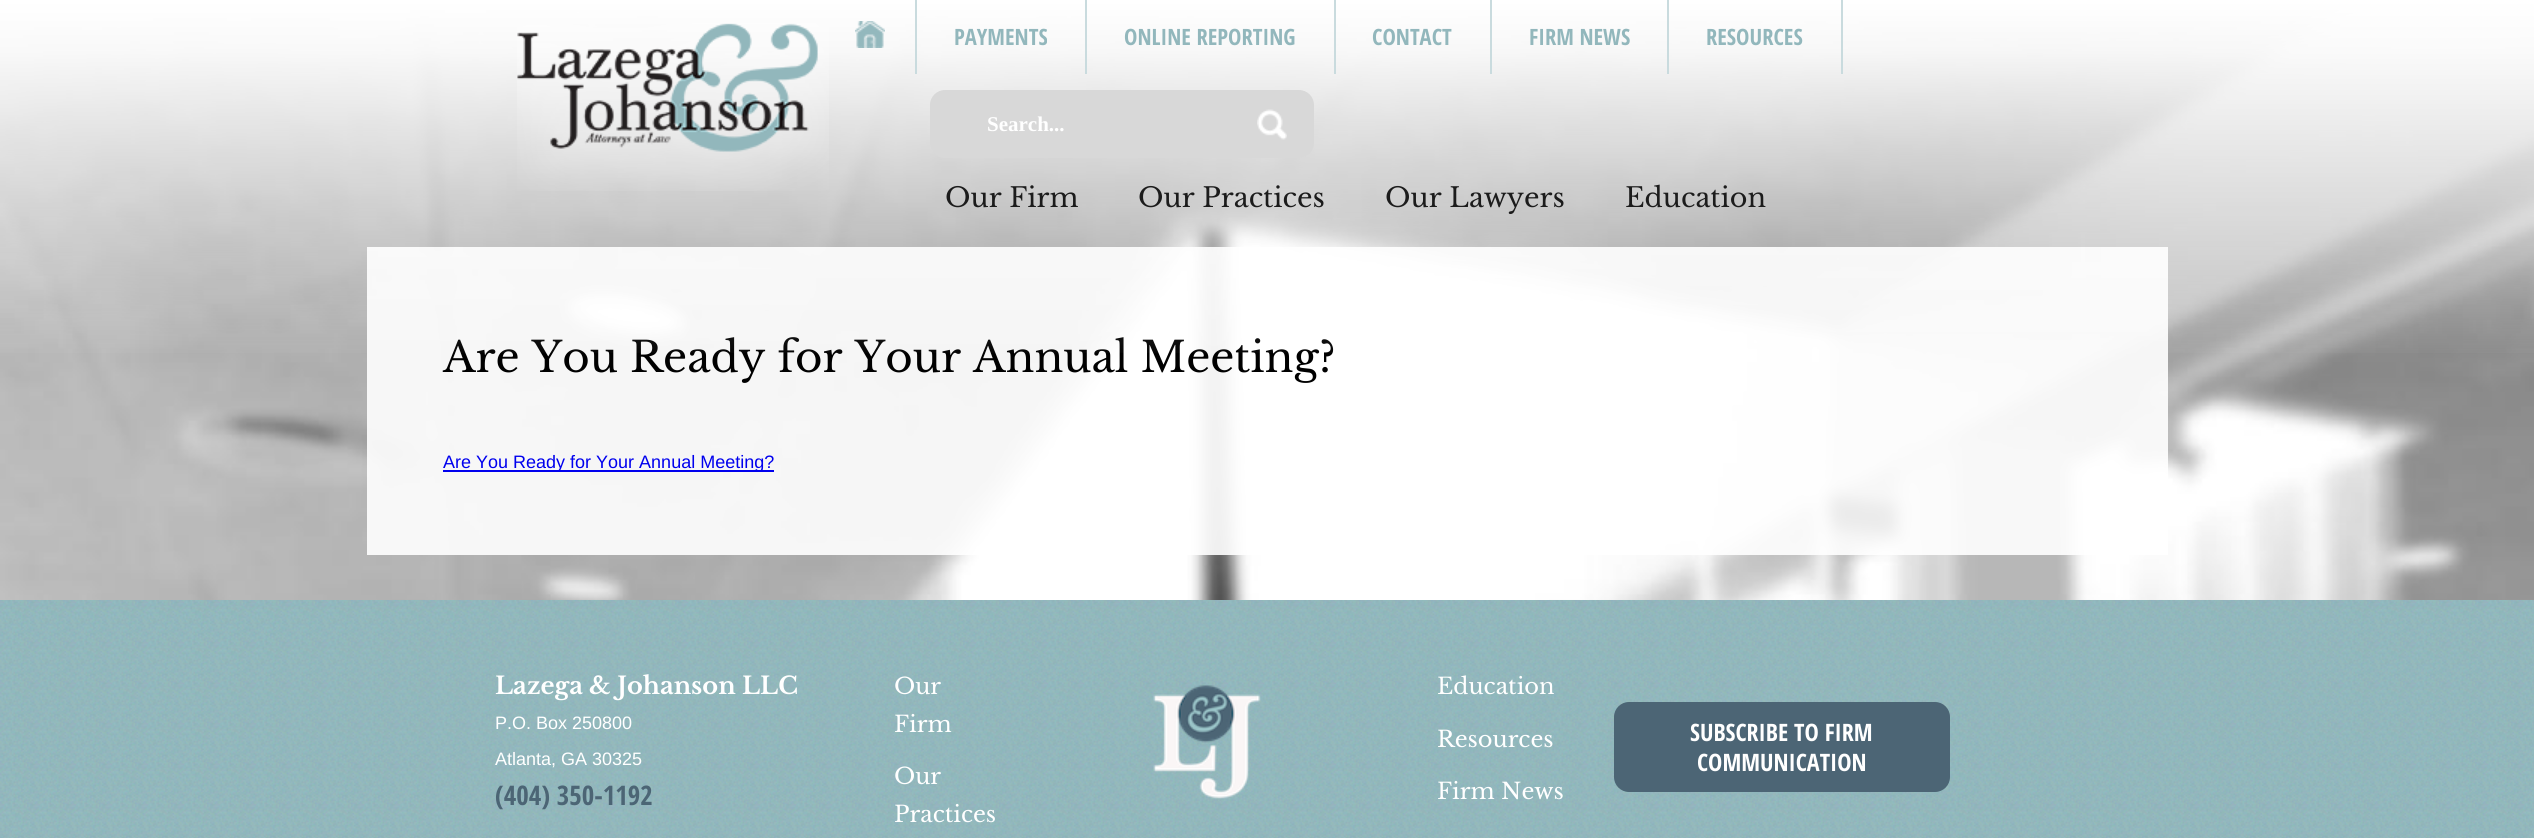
#include <cairo.h>
#include <math.h>
#include <stddef.h>

typedef struct { double x, y; const char *s; } line_t;

static void ink(cairo_t *ctx, unsigned color) {
    cairo_set_source_rgb(ctx, (color >> 16) / 255.0, (color >> 8 & 255) / 255.0, (color & 255) / 255.0);
}

static void round_path(cairo_t *ctx, double x, double y, double w, double h, double r) {
    cairo_new_sub_path(ctx);
    cairo_arc(ctx, x + w - r, y + h - r, r, 0, M_PI / 2);
    cairo_arc(ctx, x + r, y + h - r, r, M_PI / 2, M_PI);
    cairo_arc(ctx, x + r, y + r, r, M_PI, 1.5 * M_PI);
    cairo_arc(ctx, x + w - r, y + r, r, 1.5 * M_PI, 2 * M_PI);
    cairo_close_path(ctx);
}

static void paste(cairo_t *ctx, const char *path, double x, double y, double w, double h) {
    cairo_surface_t *image = cairo_image_surface_create_from_png(path);
    cairo_save(ctx);
    cairo_set_source_surface(ctx, image, x, y);
    cairo_rectangle(ctx, x, y, w, h);
    cairo_fill(ctx);
    cairo_restore(ctx);
    cairo_surface_destroy(image);
}

int main(void) {
    cairo_surface_t *surface = cairo_image_surface_create(CAIRO_FORMAT_RGB24, 2534, 838);
    cairo_t *ctx = cairo_create(surface);
    cairo_font_options_t *options = cairo_font_options_create();
    cairo_font_options_set_hint_metrics(options, CAIRO_HINT_METRICS_OFF);
    cairo_font_options_set_hint_style(options, CAIRO_HINT_STYLE_NONE);
    cairo_set_font_options(ctx, options);
    cairo_set_miter_limit(ctx, 4);
    cairo_pattern_t *gradient;
    ink(ctx, 0xFFFFFF);
    cairo_paint(ctx);
    paste(ctx, "media/1.png", 0, 4, 2534, 596);
    cairo_set_source_rgba(ctx, 1, 1, 1, 0.9);
    cairo_rectangle(ctx, 367, 247, 1801, 308);
    cairo_fill(ctx);
    cairo_select_font_face(ctx, "Libre Baskerville", CAIRO_FONT_SLANT_NORMAL, CAIRO_FONT_WEIGHT_NORMAL);
    cairo_set_font_size(ctx, 42);
    ink(ctx, 0x000000);
    cairo_move_to(ctx, 443, 372);
    cairo_show_text(ctx, "Are You Ready for Your Annual Meeting?");
    gradient = cairo_pattern_create_linear(1268, 0, 1268, 360);
    cairo_pattern_add_color_stop_rgba(gradient, 0, 1, 1, 1, 1);
    cairo_pattern_add_color_stop_rgba(gradient, 0.14, 1, 1, 1, 0.93);
    cairo_pattern_add_color_stop_rgba(gradient, 0.57, 1, 1, 1, 0.47);
    cairo_pattern_add_color_stop_rgba(gradient, 1, 1, 1, 1, 0);
    cairo_set_source(ctx, gradient);
    cairo_pattern_destroy(gradient);
    cairo_rectangle(ctx, 0, 4, 2534, 349);
    cairo_fill(ctx);
    paste(ctx, "media/2.png", 517, 23, 312, 168);
    paste(ctx, "media/3.png", 855, 21, 30, 27);
    cairo_select_font_face(ctx, "Open Sans Condensed", CAIRO_FONT_SLANT_NORMAL, CAIRO_FONT_WEIGHT_BOLD);
    cairo_set_font_size(ctx, 22.5);
    ink(ctx, 0x92B7BC);
    cairo_move_to(ctx, 954, 45);
    cairo_show_text(ctx, "PAYMENTS");
    ink(ctx, 0xC9DBDE);
    cairo_rectangle(ctx, 915, 0, 2, 74);
    cairo_fill(ctx);
    ink(ctx, 0x92B7BC);
    cairo_move_to(ctx, 1124, 45);
    cairo_show_text(ctx, "ONLINE REPORTING");
    ink(ctx, 0xC9DBDE);
    cairo_rectangle(ctx, 1085, 0, 2, 74);
    cairo_fill(ctx);
    ink(ctx, 0x92B7BC);
    cairo_move_to(ctx, 1372, 45);
    cairo_show_text(ctx, "CONTACT");
    ink(ctx, 0xC9DBDE);
    cairo_rectangle(ctx, 1334, 0, 2, 74);
    cairo_fill(ctx);
    ink(ctx, 0x92B7BC);
    cairo_move_to(ctx, 1529, 45);
    cairo_show_text(ctx, "FIRM NEWS");
    ink(ctx, 0xC9DBDE);
    cairo_rectangle(ctx, 1490, 0, 2, 74);
    cairo_fill(ctx);
    ink(ctx, 0x92B7BC);
    cairo_move_to(ctx, 1706, 45);
    cairo_show_text(ctx, "RESOURCES");
    ink(ctx, 0xC9DBDE);
    cairo_rectangle(ctx, 1841, 0, 2, 74);
    cairo_fill(ctx);
    cairo_rectangle(ctx, 1667, 0, 2, 74);
    cairo_fill(ctx);
    ink(ctx, 0xD8D8D8);
    round_path(ctx, 930, 90, 384, 68, 15);
    cairo_fill(ctx);
    cairo_select_font_face(ctx, "Liberation Serif", CAIRO_FONT_SLANT_NORMAL, CAIRO_FONT_WEIGHT_BOLD);
    cairo_set_font_size(ctx, 21);
    ink(ctx, 0xFFFFFF);
    cairo_move_to(ctx, 987, 131);
    cairo_show_text(ctx, "Search...");
    paste(ctx, "media/4.png", 1257, 109, 30, 31);
    cairo_select_font_face(ctx, "Libre Baskerville", CAIRO_FONT_SLANT_NORMAL, CAIRO_FONT_WEIGHT_NORMAL);
    cairo_set_font_size(ctx, 27);
    ink(ctx, 0x1C1C1C);
    {
        static const line_t items[] = {
            {945, 207, "Our Firm"},
            {1138, 207, "Our Practices"},
            {1385, 207, "Our Lawyers"},
            {1625, 207, "Education"},
        };
        for (size_t i = 0; i < sizeof items / sizeof *items; i++) {
            cairo_move_to(ctx, items[i].x, items[i].y);
            cairo_show_text(ctx, items[i].s);
        }
    }
    ink(ctx, 0x0000EE);
    cairo_rectangle(ctx, 443, 470, 331, 2);
    cairo_fill(ctx);
    cairo_select_font_face(ctx, "Liberation Sans", CAIRO_FONT_SLANT_NORMAL, CAIRO_FONT_WEIGHT_NORMAL);
    cairo_set_font_size(ctx, 18);
    cairo_move_to(ctx, 443, 468);
    cairo_show_text(ctx, "Are You Ready for Your Annual Meeting?");
    paste(ctx, "media/5.png", 0, 600, 2534, 238);
    cairo_select_font_face(ctx, "Libre Baskerville", CAIRO_FONT_SLANT_NORMAL, CAIRO_FONT_WEIGHT_BOLD);
    cairo_set_font_size(ctx, 24);
    ink(ctx, 0xFFFFFF);
    cairo_move_to(ctx, 495, 694);
    cairo_show_text(ctx, "Lazega & Johanson LLC");
    cairo_select_font_face(ctx, "Liberation Sans", CAIRO_FONT_SLANT_NORMAL, CAIRO_FONT_WEIGHT_NORMAL);
    cairo_set_font_size(ctx, 18);
    cairo_move_to(ctx, 495, 729);
    cairo_show_text(ctx, "P.O. Box 250800");
    cairo_move_to(ctx, 495, 765);
    cairo_show_text(ctx, "Atlanta, GA 30325");
    cairo_select_font_face(ctx, "Open Sans Condensed", CAIRO_FONT_SLANT_NORMAL, CAIRO_FONT_WEIGHT_BOLD);
    cairo_set_font_size(ctx, 27);
    ink(ctx, 0x4C6575);
    cairo_move_to(ctx, 495, 805);
    cairo_show_text(ctx, "(404) 350-1192");
    cairo_select_font_face(ctx, "Libre Baskerville", CAIRO_FONT_SLANT_NORMAL, CAIRO_FONT_WEIGHT_NORMAL);
    cairo_set_font_size(ctx, 22.5);
    ink(ctx, 0xFFFFFF);
    {
        static const line_t items[] = {
            {894, 694, "Our"},
            {894, 732, "Firm"},
            {894, 784, "Our"},
            {894, 822, "Practices"},
        };
        for (size_t i = 0; i < sizeof items / sizeof *items; i++) {
            cairo_move_to(ctx, items[i].x, items[i].y);
            cairo_show_text(ctx, items[i].s);
        }
    }
    paste(ctx, "media/6.png", 1153, 685, 108, 114);
    {
        static const line_t items[] = {
            {1437, 694, "Education"},
            {1437, 747, "Resources"},
            {1437, 799, "Firm News"},
        };
        for (size_t i = 0; i < sizeof items / sizeof *items; i++) {
            cairo_move_to(ctx, items[i].x, items[i].y);
            cairo_show_text(ctx, items[i].s);
        }
    }
    ink(ctx, 0x4C6575);
    round_path(ctx, 1614, 702, 336, 90, 15);
    cairo_fill(ctx);
    cairo_select_font_face(ctx, "Open Sans Condensed", CAIRO_FONT_SLANT_NORMAL, CAIRO_FONT_WEIGHT_BOLD);
    cairo_set_font_size(ctx, 24);
    ink(ctx, 0xFFFFFF);
    cairo_move_to(ctx, 1690, 741);
    cairo_show_text(ctx, "SUBSCRIBE TO FIRM");
    cairo_move_to(ctx, 1697, 771);
    cairo_show_text(ctx, "COMMUNICATION");
    cairo_surface_write_to_png(surface, "image.png");
    cairo_font_options_destroy(options);
    cairo_destroy(ctx);
    cairo_surface_destroy(surface);
    return 0;
}
